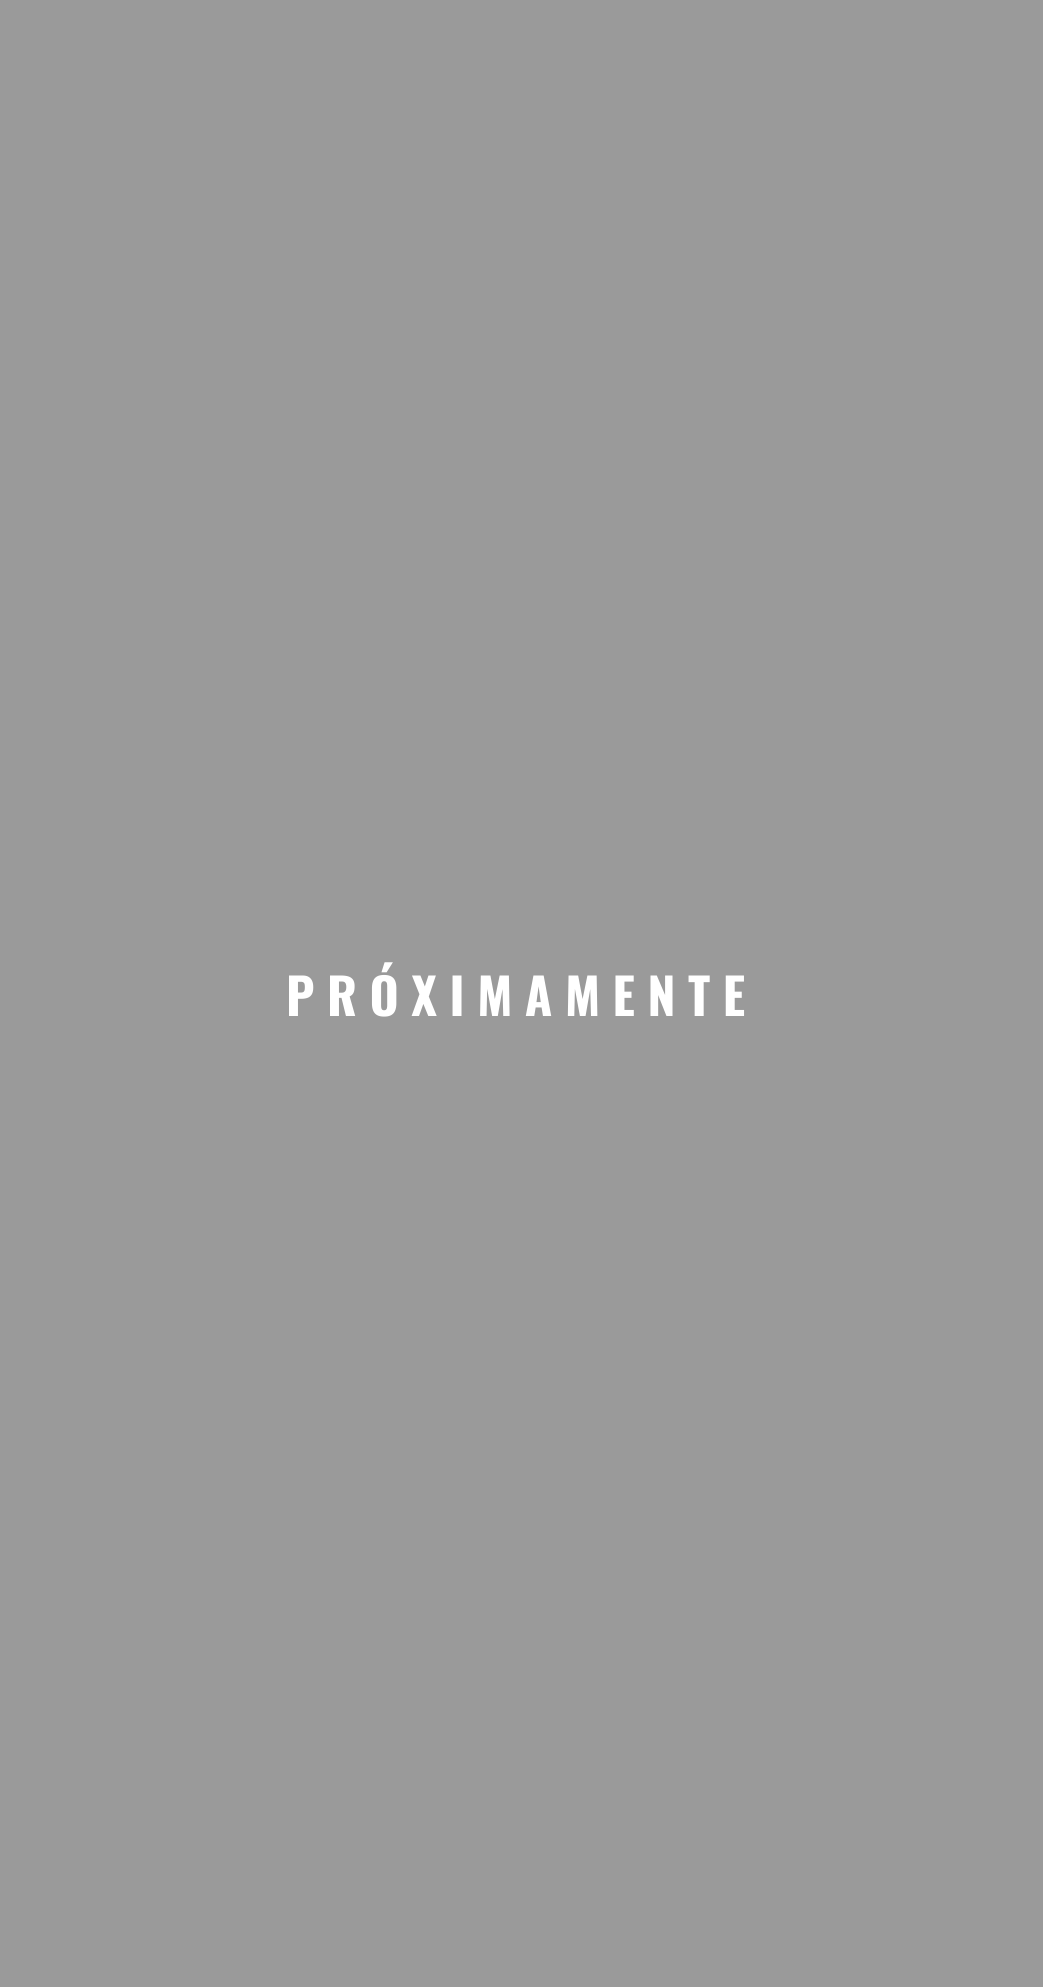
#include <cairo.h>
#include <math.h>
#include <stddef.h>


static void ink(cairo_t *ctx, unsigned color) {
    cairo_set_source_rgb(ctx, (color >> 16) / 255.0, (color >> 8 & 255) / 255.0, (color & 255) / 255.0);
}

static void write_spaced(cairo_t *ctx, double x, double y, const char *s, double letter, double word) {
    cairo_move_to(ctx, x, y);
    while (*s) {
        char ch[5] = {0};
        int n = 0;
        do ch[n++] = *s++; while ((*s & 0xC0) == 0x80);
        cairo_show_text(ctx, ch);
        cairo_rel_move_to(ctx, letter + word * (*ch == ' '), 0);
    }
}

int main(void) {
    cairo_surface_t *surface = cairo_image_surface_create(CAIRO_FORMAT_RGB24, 1043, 1987);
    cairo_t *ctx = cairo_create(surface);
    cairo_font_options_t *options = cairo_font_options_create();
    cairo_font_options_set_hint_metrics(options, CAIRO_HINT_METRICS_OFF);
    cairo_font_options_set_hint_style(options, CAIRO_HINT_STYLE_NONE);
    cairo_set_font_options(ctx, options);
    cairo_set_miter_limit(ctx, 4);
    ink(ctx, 0x9A9A9A);
    cairo_paint(ctx);
    cairo_select_font_face(ctx, "Oswald", CAIRO_FONT_SLANT_NORMAL, CAIRO_FONT_WEIGHT_BOLD);
    cairo_set_font_size(ctx, 50);
    ink(ctx, 0xFFFFFF);
    write_spaced(ctx, 286, 1016, "PRÓXIMAMENTE", 12.5, 0);
    cairo_surface_write_to_png(surface, "image.png");
    cairo_font_options_destroy(options);
    cairo_destroy(ctx);
    cairo_surface_destroy(surface);
    return 0;
}
